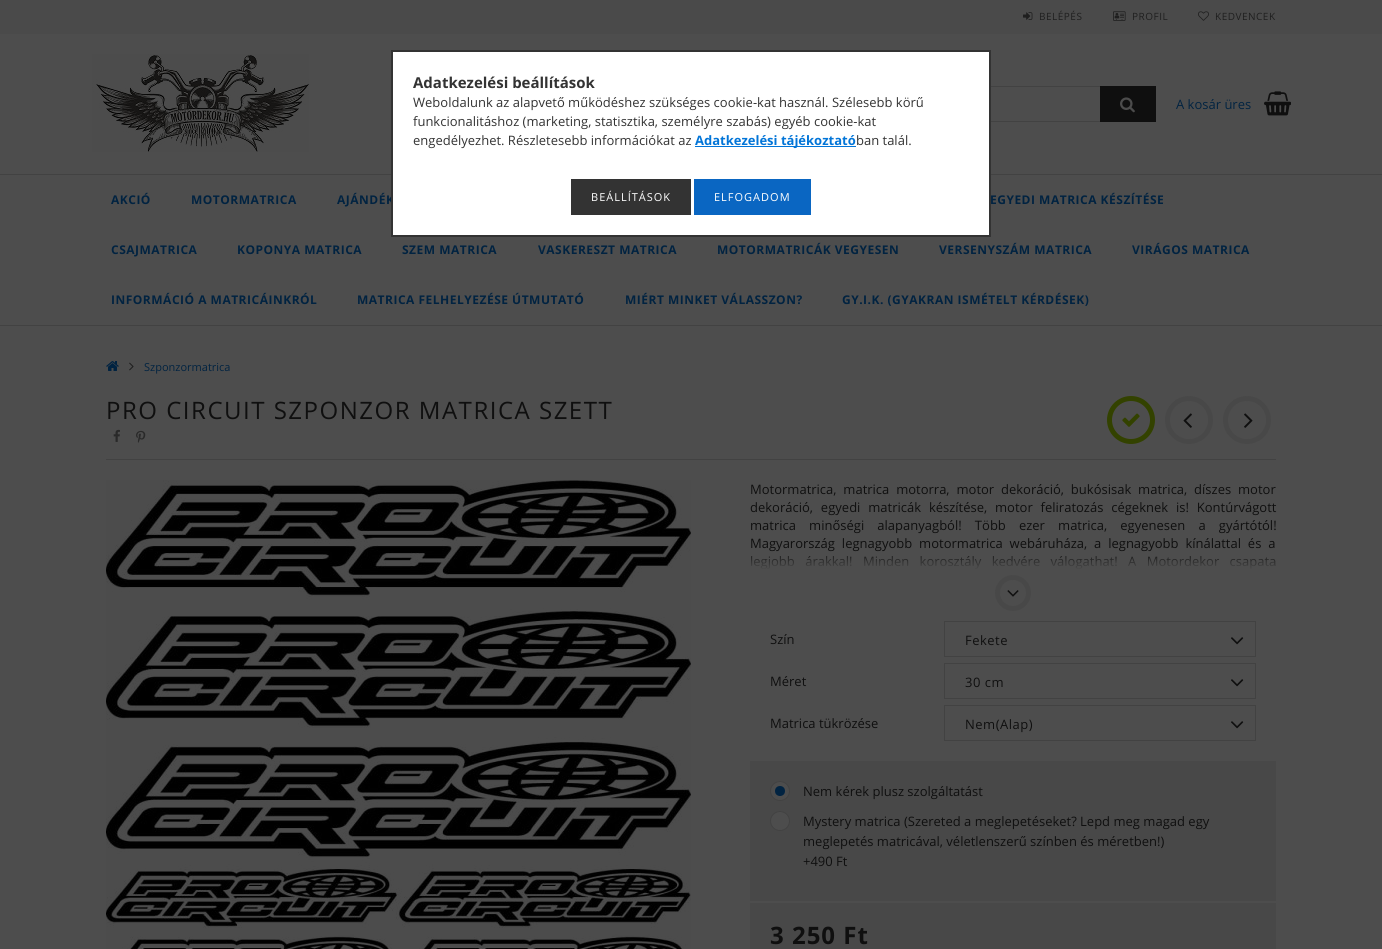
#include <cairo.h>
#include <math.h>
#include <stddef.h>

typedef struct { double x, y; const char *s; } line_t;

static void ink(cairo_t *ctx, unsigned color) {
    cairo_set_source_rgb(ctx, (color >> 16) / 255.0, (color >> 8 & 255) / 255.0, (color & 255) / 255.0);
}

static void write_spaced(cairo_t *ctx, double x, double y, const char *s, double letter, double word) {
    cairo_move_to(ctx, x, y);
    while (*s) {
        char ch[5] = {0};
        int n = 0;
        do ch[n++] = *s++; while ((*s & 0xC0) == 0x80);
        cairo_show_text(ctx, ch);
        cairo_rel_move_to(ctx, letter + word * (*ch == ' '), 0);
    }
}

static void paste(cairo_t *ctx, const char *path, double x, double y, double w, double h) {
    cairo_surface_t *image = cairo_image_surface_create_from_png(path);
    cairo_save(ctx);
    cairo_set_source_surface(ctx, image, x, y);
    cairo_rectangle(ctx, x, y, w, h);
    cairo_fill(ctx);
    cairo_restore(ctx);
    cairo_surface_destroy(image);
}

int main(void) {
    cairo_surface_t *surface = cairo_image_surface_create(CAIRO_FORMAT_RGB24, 1382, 949);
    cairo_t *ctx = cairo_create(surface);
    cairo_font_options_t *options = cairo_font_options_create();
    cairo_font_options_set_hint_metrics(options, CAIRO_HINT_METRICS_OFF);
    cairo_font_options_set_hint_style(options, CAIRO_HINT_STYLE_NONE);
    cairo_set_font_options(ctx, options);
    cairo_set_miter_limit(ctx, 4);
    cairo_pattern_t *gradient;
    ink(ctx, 0x4D4D4D);
    cairo_paint(ctx);
    ink(ctx, 0x4A4A4A);
    cairo_rectangle(ctx, 0, 0, 1382, 34);
    cairo_fill(ctx);
    paste(ctx, "media/1.png", 1023, 12, 10, 8);
    cairo_select_font_face(ctx, "Open Sans", CAIRO_FONT_SLANT_NORMAL, CAIRO_FONT_WEIGHT_NORMAL);
    cairo_set_font_size(ctx, 10);
    ink(ctx, 0x1F1F1F);
    write_spaced(ctx, 1039, 20, "BELÉPÉS", 0.5, 0);
    paste(ctx, "media/2.png", 1113, 11, 13, 10);
    write_spaced(ctx, 1132, 20, "PROFIL", 0.5, 0);
    paste(ctx, "media/3.png", 1198, 11, 11, 10);
    write_spaced(ctx, 1215, 20, "KEDVENCEK", 0.5, 0);
    paste(ctx, "media/4.png", 92, 54, 217, 98);
    cairo_rectangle(ctx, 900.5, 86.5, 255, 35);
    ink(ctx, 0x424242);
    cairo_set_line_width(ctx, 1);
    cairo_stroke(ctx);
    ink(ctx, 0x0F0F0F);
    cairo_rectangle(ctx, 1100, 86, 56, 36);
    cairo_fill(ctx);
    paste(ctx, "media/5.png", 1120, 97, 15, 16);
    cairo_set_font_size(ctx, 13);
    ink(ctx, 0x012341);
    cairo_move_to(ctx, 1176, 109);
    cairo_show_text(ctx, "A kosár üres");
    paste(ctx, "media/6.png", 1264, 91, 27, 25);
    ink(ctx, 0x424242);
    cairo_rectangle(ctx, 0, 174, 1382, 1);
    cairo_fill(ctx);
    cairo_rectangle(ctx, 0, 325, 1382, 1);
    cairo_fill(ctx);
    cairo_select_font_face(ctx, "Open Sans", CAIRO_FONT_SLANT_NORMAL, CAIRO_FONT_WEIGHT_BOLD);
    cairo_set_font_size(ctx, 12);
    ink(ctx, 0x012341);
    {
        static const line_t items[] = {
            {111, 204, "AKCIÓ"},
            {191, 204, "MOTORMATRICA"},
            {337, 204, "AJÁNDÉK"},
            {990, 204, "EGYEDI MATRICA KÉSZÍTÉSE"},
            {111, 254, "CSAJMATRICA"},
            {237, 254, "KOPONYA MATRICA"},
            {402, 254, "SZEM MATRICA"},
            {538, 254, "VASKERESZT MATRICA"},
            {717, 254, "MOTORMATRICÁK VEGYESEN"},
            {939, 254, "VERSENYSZÁM MATRICA"},
            {1132, 254, "VIRÁGOS MATRICA"},
            {111, 304, "INFORMÁCIÓ A MATRICÁINKRÓL"},
            {357, 304, "MATRICA FELHELYEZÉSE ÚTMUTATÓ"},
            {625, 304, "MIÉRT MINKET VÁLASSZON?"},
            {842, 304, "GY.I.K. (GYAKRAN ISMÉTELT KÉRDÉSEK)"},
        };
        for (size_t i = 0; i < sizeof items / sizeof *items; i++) {
            write_spaced(ctx, items[i].x, items[i].y, items[i].s, 0.5, 0);
        }
    }
    paste(ctx, "media/7.png", 106, 361, 13, 10);
    paste(ctx, "media/8.png", 129, 362, 5, 9);
    cairo_select_font_face(ctx, "Open Sans", CAIRO_FONT_SLANT_NORMAL, CAIRO_FONT_WEIGHT_NORMAL);
    cairo_set_font_size(ctx, 11);
    cairo_move_to(ctx, 144, 371);
    cairo_show_text(ctx, "Szponzormatrica");
    ink(ctx, 0x424242);
    cairo_rectangle(ctx, 106, 459, 1170, 1);
    cairo_fill(ctx);
    cairo_set_font_size(ctx, 24);
    ink(ctx, 0x0F0F0F);
    write_spaced(ctx, 106, 419, "PRO CIRCUIT SZPONZOR MATRICA SZETT", 1.5, 0);
    paste(ctx, "media/9.png", 113, 429, 7, 13);
    paste(ctx, "media/10.png", 136, 430, 10, 13);
    cairo_arc(ctx, 1131, 420, 21.5, 0, 2 * M_PI);
    ink(ctx, 0x334200);
    cairo_set_line_width(ctx, 5);
    cairo_stroke(ctx);
    paste(ctx, "media/11.png", 1122, 413, 18, 14);
    cairo_arc(ctx, 1189, 420, 21.5, 0, 2 * M_PI);
    ink(ctx, 0x484848);
    cairo_stroke(ctx);
    paste(ctx, "media/12.png", 1183, 413, 9, 15);
    cairo_arc(ctx, 1247, 420, 21.5, 0, 2 * M_PI);
    cairo_stroke(ctx);
    paste(ctx, "media/13.png", 1244, 413, 9, 15);
    paste(ctx, "media/14.png", 106, 480, 585, 469);
    cairo_set_font_size(ctx, 13);
    ink(ctx, 0x0F0F0F);
    write_spaced(ctx, 750, 494, "Motormatrica, matrica motorra, motor dekoráció, bukósisak matrica, díszes motor", 0, 3.5);
    write_spaced(ctx, 750, 512, "dekoráció, egyedi matricák készítése, motor feliratozás cégeknek is! Kontúrvágott", 0, 4.5);
    write_spaced(ctx, 750, 530, "matrica minőségi alapanyagból! Több ezer matrica, egyenesen a gyártótól!", 0, 9.75);
    write_spaced(ctx, 750, 548, "Magyarország legnagyobb motormatrica webáruháza, a legnagyobb kínálattal és a", 0, 3.5);
    write_spaced(ctx, 750, 566, "legjobb árakkal! Minden korosztály kedvére válogathat! A Motordekor csapata", 0, 7);
    gradient = cairo_pattern_create_linear(1013, 552, 1013, 570);
    cairo_pattern_add_color_stop_rgba(gradient, 0, 0.302, 0.302, 0.302, 0);
    cairo_pattern_add_color_stop_rgba(gradient, 1, 0.302, 0.302, 0.302, 1);
    cairo_set_source(ctx, gradient);
    cairo_pattern_destroy(gradient);
    cairo_rectangle(ctx, 750, 556, 525, 14);
    cairo_fill(ctx);
    cairo_arc(ctx, 1013, 593, 15.5, 0, 2 * M_PI);
    ink(ctx, 0x484848);
    cairo_stroke(ctx);
    paste(ctx, "media/15.png", 1007, 590, 12, 7);
    ink(ctx, 0x0F0F0F);
    cairo_move_to(ctx, 770, 644);
    cairo_show_text(ctx, "Szín");
    cairo_rectangle(ctx, 944.5, 621.5, 311, 35);
    ink(ctx, 0x424242);
    cairo_set_line_width(ctx, 1);
    cairo_stroke(ctx);
    ink(ctx, 0x0F0F0F);
    write_spaced(ctx, 965, 645, "Fekete", 0.5, 0);
    paste(ctx, "media/16.png", 1231, 637, 13, 8);
    cairo_move_to(ctx, 770, 686);
    cairo_show_text(ctx, "Méret");
    cairo_rectangle(ctx, 944.5, 663.5, 311, 35);
    ink(ctx, 0x424242);
    cairo_stroke(ctx);
    ink(ctx, 0x0F0F0F);
    write_spaced(ctx, 965, 687, "30 cm", 0.5, 0);
    paste(ctx, "media/16.png", 1231, 679, 13, 8);
    cairo_move_to(ctx, 770, 728);
    cairo_show_text(ctx, "Matrica tükrözése");
    cairo_rectangle(ctx, 944.5, 705.5, 311, 35);
    ink(ctx, 0x424242);
    cairo_stroke(ctx);
    ink(ctx, 0x0F0F0F);
    write_spaced(ctx, 965, 729, "Nem(Alap)", 0.5, 0);
    paste(ctx, "media/16.png", 1231, 721, 13, 8);
    ink(ctx, 0x484848);
    cairo_rectangle(ctx, 750, 761, 526, 140);
    cairo_fill(ctx);
    ink(ctx, 0x4D4D4D);
    cairo_arc(ctx, 780, 791, 9.5, 0, 2 * M_PI);
    cairo_fill_preserve(ctx);
    ink(ctx, 0x424242);
    cairo_stroke(ctx);
    ink(ctx, 0x012341);
    cairo_arc(ctx, 780, 791, 5, 0, 2 * M_PI);
    cairo_fill(ctx);
    ink(ctx, 0x0F0F0F);
    cairo_move_to(ctx, 803, 796);
    cairo_show_text(ctx, "Nem kérek plusz szolgáltatást");
    ink(ctx, 0x4D4D4D);
    cairo_new_path(ctx);
    cairo_arc(ctx, 780, 821, 9.5, 0, 2 * M_PI);
    cairo_fill_preserve(ctx);
    ink(ctx, 0x424242);
    cairo_stroke(ctx);
    ink(ctx, 0x0F0F0F);
    {
        static const line_t items[] = {
            {803, 826, "Mystery matrica (Szereted a meglepetéseket? Lepd meg magad egy"},
            {803, 846, "meglepetés matricával, véletlenszerű színben és méretben!)"},
            {803, 866, "+490 Ft"},
        };
        for (size_t i = 0; i < sizeof items / sizeof *items; i++) {
            cairo_move_to(ctx, items[i].x, items[i].y);
            cairo_show_text(ctx, items[i].s);
        }
    }
    ink(ctx, 0x484848);
    cairo_rectangle(ctx, 750, 903, 526, 46);
    cairo_fill(ctx);
    cairo_select_font_face(ctx, "Open Sans", CAIRO_FONT_SLANT_NORMAL, CAIRO_FONT_WEIGHT_BOLD);
    cairo_set_font_size(ctx, 24);
    ink(ctx, 0x0F0F0F);
    write_spaced(ctx, 770, 944, "3 250 Ft", 1, 0);
    ink(ctx, 0xFFFFFF);
    cairo_rectangle(ctx, 392, 51, 598, 185);
    cairo_fill_preserve(ctx);
    ink(ctx, 0x333333);
    cairo_set_line_width(ctx, 2);
    cairo_stroke(ctx);
    cairo_set_font_size(ctx, 15);
    cairo_move_to(ctx, 413, 88);
    cairo_show_text(ctx, "Adatkezelési beállítások");
    cairo_select_font_face(ctx, "Open Sans", CAIRO_FONT_SLANT_NORMAL, CAIRO_FONT_WEIGHT_NORMAL);
    cairo_set_font_size(ctx, 13);
    {
        static const line_t items[] = {
            {413, 107, "Weboldalunk az alapvető működéshez szükséges cookie-kat használ. Szélesebb körű"},
            {413, 126, "funkcionalitáshoz (marketing, statisztika, személyre szabás) egyéb cookie-kat"},
            {413, 145, "engedélyezhet. Részletesebb információkat az"},
        };
        for (size_t i = 0; i < sizeof items / sizeof *items; i++) {
            cairo_move_to(ctx, items[i].x, items[i].y);
            cairo_show_text(ctx, items[i].s);
        }
    }
    ink(ctx, 0x0275D8);
    cairo_rectangle(ctx, 695, 146, 161, 1);
    cairo_fill(ctx);
    cairo_select_font_face(ctx, "Open Sans", CAIRO_FONT_SLANT_NORMAL, CAIRO_FONT_WEIGHT_BOLD);
    cairo_move_to(ctx, 695, 145);
    cairo_show_text(ctx, "Adatkezelési tájékoztató");
    cairo_select_font_face(ctx, "Open Sans", CAIRO_FONT_SLANT_NORMAL, CAIRO_FONT_WEIGHT_NORMAL);
    ink(ctx, 0x333333);
    cairo_move_to(ctx, 856, 145);
    cairo_show_text(ctx, "ban talál.");
    cairo_rectangle(ctx, 571, 179, 120, 36);
    cairo_fill(ctx);
    cairo_set_font_size(ctx, 11);
    ink(ctx, 0xFFFFFF);
    write_spaced(ctx, 591, 201, "BEÁLLÍTÁSOK", 1, 0);
    ink(ctx, 0x0A66C2);
    cairo_rectangle(ctx, 694, 179, 117, 36);
    cairo_fill(ctx);
    ink(ctx, 0xFFFFFF);
    write_spaced(ctx, 714, 201, "ELFOGADOM", 1, 0);
    cairo_surface_write_to_png(surface, "image.png");
    cairo_font_options_destroy(options);
    cairo_destroy(ctx);
    cairo_surface_destroy(surface);
    return 0;
}
